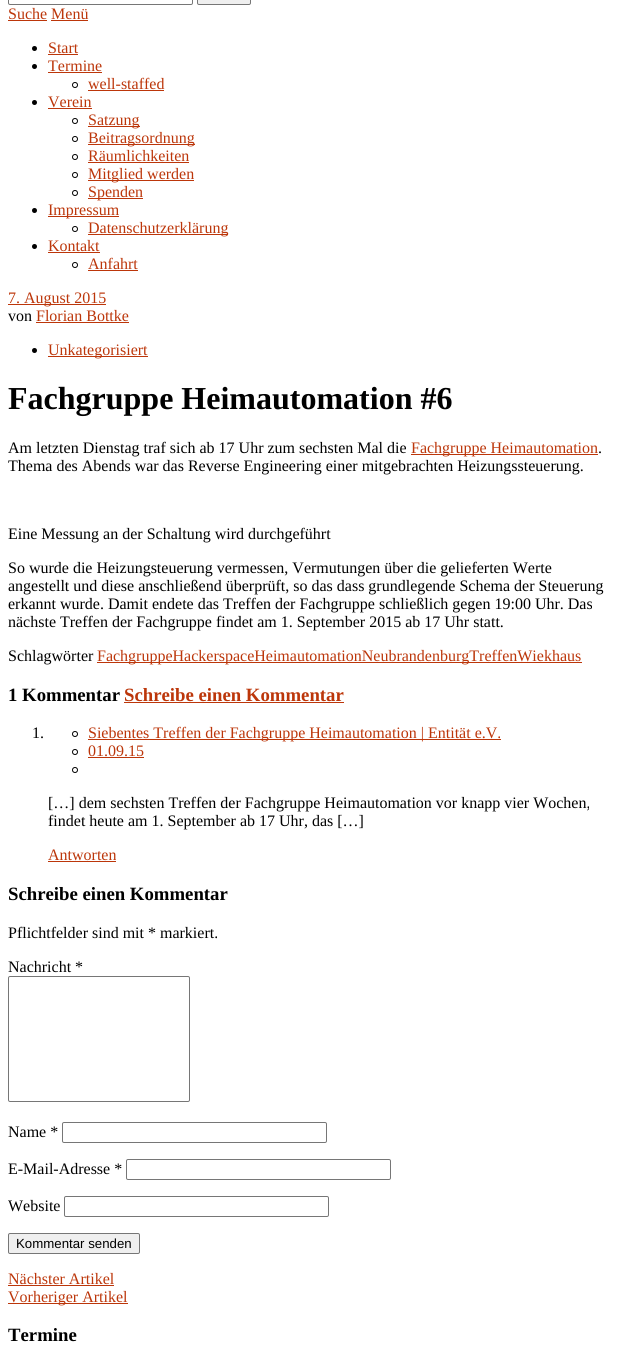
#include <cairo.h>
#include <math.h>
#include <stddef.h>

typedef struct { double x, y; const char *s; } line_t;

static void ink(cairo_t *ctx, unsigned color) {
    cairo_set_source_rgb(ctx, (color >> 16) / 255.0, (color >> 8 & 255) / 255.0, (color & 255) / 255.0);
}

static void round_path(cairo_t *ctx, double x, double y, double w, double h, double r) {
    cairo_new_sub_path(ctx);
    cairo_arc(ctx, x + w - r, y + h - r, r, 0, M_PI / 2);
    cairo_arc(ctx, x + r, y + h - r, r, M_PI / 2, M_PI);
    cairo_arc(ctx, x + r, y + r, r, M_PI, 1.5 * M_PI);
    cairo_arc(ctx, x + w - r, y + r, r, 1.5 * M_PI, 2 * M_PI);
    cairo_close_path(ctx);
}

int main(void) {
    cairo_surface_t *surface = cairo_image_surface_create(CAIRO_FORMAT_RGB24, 619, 1347);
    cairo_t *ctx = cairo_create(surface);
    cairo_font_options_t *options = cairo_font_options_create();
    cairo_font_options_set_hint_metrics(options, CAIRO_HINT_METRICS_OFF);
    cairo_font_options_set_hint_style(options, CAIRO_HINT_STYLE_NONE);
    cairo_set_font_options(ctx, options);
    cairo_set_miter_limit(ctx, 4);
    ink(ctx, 0xFFFFFF);
    cairo_paint(ctx);
    round_path(ctx, 8.5, -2.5, 184, 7, 1.5);
    ink(ctx, 0x767676);
    cairo_set_line_width(ctx, 1);
    cairo_stroke(ctx);
    ink(ctx, 0xEFEFEF);
    round_path(ctx, 197.5, -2.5, 53, 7, 1.5);
    cairo_fill_preserve(ctx);
    ink(ctx, 0x767676);
    cairo_stroke(ctx);
    cairo_select_font_face(ctx, "Liberation Serif", CAIRO_FONT_SLANT_NORMAL, CAIRO_FONT_WEIGHT_NORMAL);
    cairo_set_font_size(ctx, 16);
    ink(ctx, 0xBC360A);
    cairo_move_to(ctx, 8, 19);
    cairo_show_text(ctx, "Suche Menü");
    cairo_rectangle(ctx, 8, 20, 39, 1);
    cairo_fill(ctx);
    cairo_rectangle(ctx, 51, 20, 37, 1);
    cairo_fill(ctx);
    ink(ctx, 0x000000);
    cairo_arc(ctx, 34.5, 48.5, 2.5, 0, 2 * M_PI);
    cairo_fill(ctx);
    ink(ctx, 0xBC360A);
    cairo_move_to(ctx, 48, 53);
    cairo_show_text(ctx, "Start");
    cairo_rectangle(ctx, 48, 54, 30, 1);
    cairo_fill(ctx);
    ink(ctx, 0x000000);
    cairo_arc(ctx, 34.5, 66.5, 2.5, 0, 2 * M_PI);
    cairo_fill(ctx);
    ink(ctx, 0xBC360A);
    cairo_move_to(ctx, 48, 71);
    cairo_show_text(ctx, "Termine");
    cairo_rectangle(ctx, 48, 72, 54, 1);
    cairo_fill(ctx);
    cairo_arc(ctx, 75, 85, 2.5, 0, 2 * M_PI);
    ink(ctx, 0x000000);
    cairo_stroke(ctx);
    ink(ctx, 0xBC360A);
    cairo_move_to(ctx, 88, 89);
    cairo_show_text(ctx, "well-staffed");
    cairo_rectangle(ctx, 88, 90, 76, 1);
    cairo_fill(ctx);
    ink(ctx, 0x000000);
    cairo_arc(ctx, 34.5, 102.5, 2.5, 0, 2 * M_PI);
    cairo_fill(ctx);
    ink(ctx, 0xBC360A);
    cairo_move_to(ctx, 48, 107);
    cairo_show_text(ctx, "Verein");
    cairo_rectangle(ctx, 48, 108, 44, 1);
    cairo_fill(ctx);
    cairo_arc(ctx, 75, 121, 2.5, 0, 2 * M_PI);
    ink(ctx, 0x000000);
    cairo_stroke(ctx);
    ink(ctx, 0xBC360A);
    cairo_rectangle(ctx, 88, 126, 52, 1);
    cairo_fill(ctx);
    cairo_move_to(ctx, 88, 125);
    cairo_show_text(ctx, "Satzung");
    cairo_new_path(ctx);
    cairo_arc(ctx, 75, 139, 2.5, 0, 2 * M_PI);
    ink(ctx, 0x000000);
    cairo_stroke(ctx);
    ink(ctx, 0xBC360A);
    cairo_rectangle(ctx, 88, 144, 107, 1);
    cairo_fill(ctx);
    cairo_move_to(ctx, 88, 143);
    cairo_show_text(ctx, "Beitragsordnung");
    cairo_new_path(ctx);
    cairo_arc(ctx, 75, 157, 2.5, 0, 2 * M_PI);
    ink(ctx, 0x000000);
    cairo_stroke(ctx);
    ink(ctx, 0xBC360A);
    cairo_move_to(ctx, 88, 161);
    cairo_show_text(ctx, "Räumlichkeiten");
    cairo_rectangle(ctx, 88, 162, 101, 1);
    cairo_fill(ctx);
    cairo_arc(ctx, 75, 175, 2.5, 0, 2 * M_PI);
    ink(ctx, 0x000000);
    cairo_stroke(ctx);
    ink(ctx, 0xBC360A);
    cairo_rectangle(ctx, 88, 180, 106, 1);
    cairo_fill(ctx);
    cairo_move_to(ctx, 88, 179);
    cairo_show_text(ctx, "Mitglied werden");
    cairo_new_path(ctx);
    cairo_arc(ctx, 75, 193, 2.5, 0, 2 * M_PI);
    ink(ctx, 0x000000);
    cairo_stroke(ctx);
    ink(ctx, 0xBC360A);
    cairo_rectangle(ctx, 88, 198, 55, 1);
    cairo_fill(ctx);
    cairo_move_to(ctx, 88, 197);
    cairo_show_text(ctx, "Spenden");
    ink(ctx, 0x000000);
    cairo_new_path(ctx);
    cairo_arc(ctx, 34.5, 210.5, 2.5, 0, 2 * M_PI);
    cairo_fill(ctx);
    ink(ctx, 0xBC360A);
    cairo_rectangle(ctx, 48, 216, 71, 1);
    cairo_fill(ctx);
    cairo_move_to(ctx, 48, 215);
    cairo_show_text(ctx, "Impressum");
    cairo_new_path(ctx);
    cairo_arc(ctx, 75, 229, 2.5, 0, 2 * M_PI);
    ink(ctx, 0x000000);
    cairo_stroke(ctx);
    ink(ctx, 0xBC360A);
    cairo_rectangle(ctx, 88, 234, 140, 1);
    cairo_fill(ctx);
    cairo_move_to(ctx, 88, 233);
    cairo_show_text(ctx, "Datenschutzerklärung");
    ink(ctx, 0x000000);
    cairo_new_path(ctx);
    cairo_arc(ctx, 34.5, 246.5, 2.5, 0, 2 * M_PI);
    cairo_fill(ctx);
    ink(ctx, 0xBC360A);
    cairo_move_to(ctx, 48, 251);
    cairo_show_text(ctx, "Kontakt");
    cairo_rectangle(ctx, 48, 252, 52, 1);
    cairo_fill(ctx);
    cairo_arc(ctx, 75, 265, 2.5, 0, 2 * M_PI);
    ink(ctx, 0x000000);
    cairo_stroke(ctx);
    ink(ctx, 0xBC360A);
    cairo_move_to(ctx, 88, 269);
    cairo_show_text(ctx, "Anfahrt");
    cairo_rectangle(ctx, 88, 270, 50, 1);
    cairo_fill(ctx);
    cairo_rectangle(ctx, 8, 304, 98, 1);
    cairo_fill(ctx);
    cairo_move_to(ctx, 8, 303);
    cairo_show_text(ctx, "7. August 2015");
    ink(ctx, 0x000000);
    cairo_move_to(ctx, 8, 321);
    cairo_show_text(ctx, "von");
    ink(ctx, 0xBC360A);
    cairo_move_to(ctx, 36, 321);
    cairo_show_text(ctx, "Florian Bottke");
    cairo_rectangle(ctx, 36, 322, 93, 1);
    cairo_fill(ctx);
    ink(ctx, 0x000000);
    cairo_arc(ctx, 34.5, 350.5, 2.5, 0, 2 * M_PI);
    cairo_fill(ctx);
    ink(ctx, 0xBC360A);
    cairo_rectangle(ctx, 48, 356, 100, 1);
    cairo_fill(ctx);
    cairo_move_to(ctx, 48, 355);
    cairo_show_text(ctx, "Unkategorisiert");
    cairo_select_font_face(ctx, "Liberation Serif", CAIRO_FONT_SLANT_NORMAL, CAIRO_FONT_WEIGHT_BOLD);
    cairo_set_font_size(ctx, 32);
    ink(ctx, 0x000000);
    cairo_move_to(ctx, 8, 409);
    cairo_show_text(ctx, "Fachgruppe Heimautomation #6");
    cairo_select_font_face(ctx, "Liberation Serif", CAIRO_FONT_SLANT_NORMAL, CAIRO_FONT_WEIGHT_NORMAL);
    cairo_set_font_size(ctx, 16);
    cairo_move_to(ctx, 8, 453);
    cairo_show_text(ctx, "Am letzten Dienstag traf sich ab 17 Uhr zum sechsten Mal die");
    ink(ctx, 0xBC360A);
    cairo_rectangle(ctx, 411, 454, 187, 1);
    cairo_fill(ctx);
    cairo_move_to(ctx, 411, 453);
    cairo_show_text(ctx, "Fachgruppe Heimautomation");
    ink(ctx, 0x000000);
    {
        static const line_t items[] = {
            {598, 453, "."},
            {8, 471, "Thema des Abends war das Reverse Engineering einer mitgebrachten Heizungssteuerung."},
            {8, 539, "Eine Messung an der Schaltung wird durchgeführt"},
            {8, 573, "So wurde die Heizungsteuerung vermessen, Vermutungen über die gelieferten Werte"},
            {8, 591, "angestellt und diese anschließend überprüft, so das dass grundlegende Schema der Steuerung"},
            {8, 609, "erkannt wurde. Damit endete das Treffen der Fachgruppe schließlich gegen 19:00 Uhr. Das"},
            {8, 627, "nächste Treffen der Fachgruppe findet am 1. September 2015 ab 17 Uhr statt."},
            {8, 661, "Schlagwörter"},
        };
        for (size_t i = 0; i < sizeof items / sizeof *items; i++) {
            cairo_move_to(ctx, items[i].x, items[i].y);
            cairo_show_text(ctx, items[i].s);
        }
    }
    ink(ctx, 0xBC360A);
    cairo_rectangle(ctx, 97, 662, 485, 1);
    cairo_fill(ctx);
    cairo_move_to(ctx, 97, 661);
    cairo_show_text(ctx, "FachgruppeHackerspaceHeimautomationNeubrandenburgTreffenWiekhaus");
    cairo_select_font_face(ctx, "Liberation Serif", CAIRO_FONT_SLANT_NORMAL, CAIRO_FONT_WEIGHT_BOLD);
    cairo_set_font_size(ctx, 18.75);
    ink(ctx, 0x000000);
    cairo_move_to(ctx, 8, 701);
    cairo_show_text(ctx, "1 Kommentar");
    ink(ctx, 0xBC360A);
    cairo_move_to(ctx, 124, 701);
    cairo_show_text(ctx, "Schreibe einen Kommentar");
    cairo_rectangle(ctx, 124, 702, 220, 1);
    cairo_fill(ctx);
    cairo_select_font_face(ctx, "Liberation Serif", CAIRO_FONT_SLANT_NORMAL, CAIRO_FONT_WEIGHT_NORMAL);
    cairo_set_font_size(ctx, 16);
    ink(ctx, 0x000000);
    cairo_move_to(ctx, 32, 738);
    cairo_show_text(ctx, "1.");
    cairo_new_path(ctx);
    cairo_arc(ctx, 75, 734, 2.5, 0, 2 * M_PI);
    cairo_stroke(ctx);
    ink(ctx, 0xBC360A);
    cairo_rectangle(ctx, 88, 739, 413, 1);
    cairo_fill(ctx);
    cairo_move_to(ctx, 88, 738);
    cairo_show_text(ctx, "Siebentes Treffen der Fachgruppe Heimautomation | Entität e.V.");
    cairo_new_path(ctx);
    cairo_arc(ctx, 75, 752, 2.5, 0, 2 * M_PI);
    ink(ctx, 0x000000);
    cairo_stroke(ctx);
    ink(ctx, 0xBC360A);
    cairo_move_to(ctx, 88, 756);
    cairo_show_text(ctx, "01.09.15");
    cairo_rectangle(ctx, 88, 757, 56, 1);
    cairo_fill(ctx);
    cairo_arc(ctx, 75, 770, 2.5, 0, 2 * M_PI);
    ink(ctx, 0x000000);
    cairo_stroke(ctx);
    cairo_move_to(ctx, 48, 808);
    cairo_show_text(ctx, "[…] dem sechsten Treffen der Fachgruppe Heimautomation vor knapp vier Wochen,");
    cairo_move_to(ctx, 48, 826);
    cairo_show_text(ctx, "findet heute am 1. September ab 17 Uhr, das […]");
    ink(ctx, 0xBC360A);
    cairo_move_to(ctx, 48, 860);
    cairo_show_text(ctx, "Antworten");
    cairo_rectangle(ctx, 48, 861, 68, 1);
    cairo_fill(ctx);
    cairo_select_font_face(ctx, "Liberation Serif", CAIRO_FONT_SLANT_NORMAL, CAIRO_FONT_WEIGHT_BOLD);
    cairo_set_font_size(ctx, 18.75);
    ink(ctx, 0x000000);
    cairo_move_to(ctx, 8, 900);
    cairo_show_text(ctx, "Schreibe einen Kommentar");
    cairo_select_font_face(ctx, "Liberation Serif", CAIRO_FONT_SLANT_NORMAL, CAIRO_FONT_WEIGHT_NORMAL);
    cairo_set_font_size(ctx, 16);
    cairo_move_to(ctx, 8, 938);
    cairo_show_text(ctx, "Pflichtfelder sind mit * markiert.");
    cairo_move_to(ctx, 8, 972);
    cairo_show_text(ctx, "Nachricht *");
    round_path(ctx, 8.5, 976.5, 181, 125, 1.5);
    ink(ctx, 0x767676);
    cairo_stroke(ctx);
    ink(ctx, 0x000000);
    cairo_move_to(ctx, 8, 1137);
    cairo_show_text(ctx, "Name *");
    round_path(ctx, 62.5, 1122.5, 264, 20, 1.5);
    ink(ctx, 0x767676);
    cairo_stroke(ctx);
    ink(ctx, 0x000000);
    cairo_move_to(ctx, 8, 1174);
    cairo_show_text(ctx, "E-Mail-Adresse *");
    round_path(ctx, 126.5, 1159.5, 264, 20, 1.5);
    ink(ctx, 0x767676);
    cairo_stroke(ctx);
    ink(ctx, 0x000000);
    cairo_move_to(ctx, 8, 1211);
    cairo_show_text(ctx, "Website");
    round_path(ctx, 64.5, 1196.5, 264, 20, 1.5);
    ink(ctx, 0x767676);
    cairo_stroke(ctx);
    ink(ctx, 0xEFEFEF);
    round_path(ctx, 8.5, 1233.5, 131, 20, 1.5);
    cairo_fill_preserve(ctx);
    ink(ctx, 0x767676);
    cairo_stroke(ctx);
    cairo_select_font_face(ctx, "Liberation Sans", CAIRO_FONT_SLANT_NORMAL, CAIRO_FONT_WEIGHT_NORMAL);
    cairo_set_font_size(ctx, 13.25);
    ink(ctx, 0x000000);
    cairo_move_to(ctx, 16, 1248);
    cairo_show_text(ctx, "Kommentar senden");
    cairo_select_font_face(ctx, "Liberation Serif", CAIRO_FONT_SLANT_NORMAL, CAIRO_FONT_WEIGHT_NORMAL);
    cairo_set_font_size(ctx, 16);
    ink(ctx, 0xBC360A);
    cairo_move_to(ctx, 8, 1284);
    cairo_show_text(ctx, "Nächster Artikel");
    cairo_rectangle(ctx, 8, 1285, 106, 1);
    cairo_fill(ctx);
    cairo_rectangle(ctx, 8, 1303, 120, 1);
    cairo_fill(ctx);
    cairo_move_to(ctx, 8, 1302);
    cairo_show_text(ctx, "Vorheriger Artikel");
    cairo_select_font_face(ctx, "Liberation Serif", CAIRO_FONT_SLANT_NORMAL, CAIRO_FONT_WEIGHT_BOLD);
    cairo_set_font_size(ctx, 18.75);
    ink(ctx, 0x000000);
    cairo_move_to(ctx, 8, 1341);
    cairo_show_text(ctx, "Termine");
    cairo_surface_write_to_png(surface, "image.png");
    cairo_font_options_destroy(options);
    cairo_destroy(ctx);
    cairo_surface_destroy(surface);
    return 0;
}
